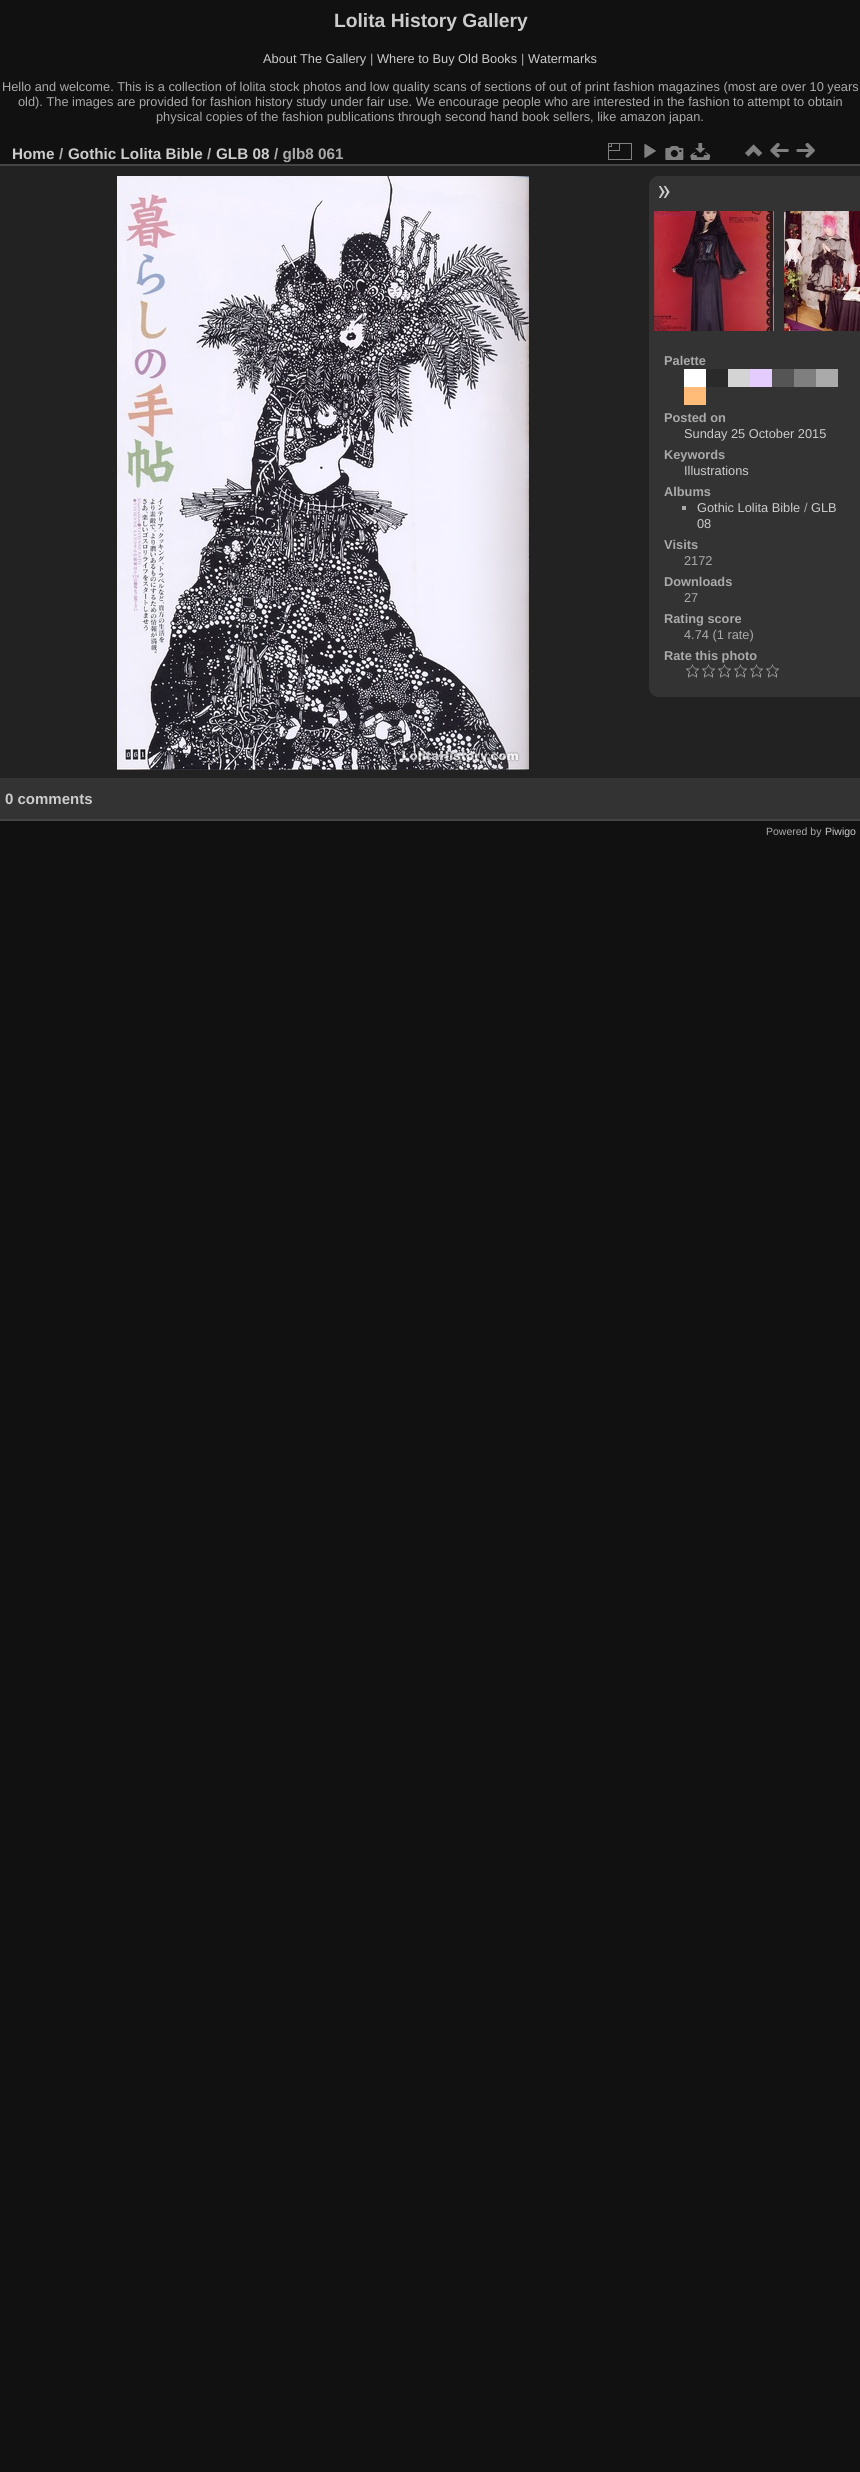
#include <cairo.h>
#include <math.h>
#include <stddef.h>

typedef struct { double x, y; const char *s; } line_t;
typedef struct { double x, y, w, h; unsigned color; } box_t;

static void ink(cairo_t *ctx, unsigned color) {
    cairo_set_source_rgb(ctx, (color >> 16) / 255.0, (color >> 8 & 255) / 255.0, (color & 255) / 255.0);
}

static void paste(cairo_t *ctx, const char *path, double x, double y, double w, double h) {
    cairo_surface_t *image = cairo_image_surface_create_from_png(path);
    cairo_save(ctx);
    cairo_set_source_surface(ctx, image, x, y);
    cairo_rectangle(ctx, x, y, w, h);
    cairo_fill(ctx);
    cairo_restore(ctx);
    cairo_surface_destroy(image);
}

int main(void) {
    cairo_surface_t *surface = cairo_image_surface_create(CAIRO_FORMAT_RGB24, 860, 2472);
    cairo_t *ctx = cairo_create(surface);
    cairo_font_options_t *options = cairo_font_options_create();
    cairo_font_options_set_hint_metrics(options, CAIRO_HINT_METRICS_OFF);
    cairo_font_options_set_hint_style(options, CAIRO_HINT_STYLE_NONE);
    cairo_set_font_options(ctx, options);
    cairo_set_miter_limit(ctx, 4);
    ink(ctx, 0x111111);
    cairo_paint(ctx);
    cairo_select_font_face(ctx, "Liberation Sans", CAIRO_FONT_SLANT_NORMAL, CAIRO_FONT_WEIGHT_BOLD);
    cairo_set_font_size(ctx, 19.25);
    ink(ctx, 0xCCCCCC);
    cairo_move_to(ctx, 334, 27);
    cairo_show_text(ctx, "Lolita History Gallery");
    cairo_select_font_face(ctx, "Liberation Sans", CAIRO_FONT_SLANT_NORMAL, CAIRO_FONT_WEIGHT_NORMAL);
    cairo_set_font_size(ctx, 12.8);
    cairo_move_to(ctx, 263, 63);
    cairo_show_text(ctx, "About The Gallery");
    ink(ctx, 0xAAAAAA);
    cairo_move_to(ctx, 370, 63);
    cairo_show_text(ctx, "|");
    ink(ctx, 0xCCCCCC);
    cairo_move_to(ctx, 377, 63);
    cairo_show_text(ctx, "Where to Buy Old Books");
    ink(ctx, 0xAAAAAA);
    cairo_move_to(ctx, 521, 63);
    cairo_show_text(ctx, "|");
    ink(ctx, 0xCCCCCC);
    cairo_move_to(ctx, 528, 63);
    cairo_show_text(ctx, "Watermarks");
    ink(ctx, 0xAAAAAA);
    {
        static const line_t items[] = {
            {2, 91, "Hello and welcome. This is a collection of lolita stock photos and low quality scans of sections of out of print fashion magazines (most are over 10 years"},
            {18, 106, "old). The images are provided for fashion history study under fair use. We encourage people who are interested in the fashion to attempt to obtain"},
            {156, 121, "physical copies of the fashion publications through second hand book sellers, like amazon japan."},
        };
        for (size_t i = 0; i < sizeof items / sizeof *items; i++) {
            cairo_move_to(ctx, items[i].x, items[i].y);
            cairo_show_text(ctx, items[i].s);
        }
    }
    {
        static const box_t items[] = {
            {0, 166, 860, 612, 0x222222},
            {0, 819, 860, 2, 0x444444},
            {0, 164, 860, 2, 0x444444},
        };
        for (size_t i = 0; i < sizeof items / sizeof *items; i++) {
            ink(ctx, items[i].color);
            cairo_rectangle(ctx, items[i].x, items[i].y, items[i].w, items[i].h);
            cairo_fill(ctx);
        }
    }
    cairo_select_font_face(ctx, "Liberation Sans", CAIRO_FONT_SLANT_NORMAL, CAIRO_FONT_WEIGHT_BOLD);
    cairo_set_font_size(ctx, 15.25);
    ink(ctx, 0xCCCCCC);
    cairo_move_to(ctx, 12, 159);
    cairo_show_text(ctx, "Home");
    ink(ctx, 0xAAAAAA);
    cairo_move_to(ctx, 59, 159);
    cairo_show_text(ctx, "/");
    ink(ctx, 0xCCCCCC);
    cairo_move_to(ctx, 68, 159);
    cairo_show_text(ctx, "Gothic Lolita Bible");
    ink(ctx, 0xAAAAAA);
    cairo_move_to(ctx, 207, 159);
    cairo_show_text(ctx, "/");
    ink(ctx, 0xCCCCCC);
    cairo_move_to(ctx, 216, 159);
    cairo_show_text(ctx, "GLB 08");
    ink(ctx, 0xAAAAAA);
    cairo_move_to(ctx, 274, 159);
    cairo_show_text(ctx, "/ glb8 061");
    paste(ctx, "media/1.png", 608, 143, 24, 17);
    paste(ctx, "media/2.png", 644, 144, 12, 14);
    paste(ctx, "media/3.png", 665, 146, 19, 14);
    paste(ctx, "media/4.png", 690, 143, 21, 17);
    paste(ctx, "media/5.png", 745, 144, 17, 13);
    paste(ctx, "media/6.png", 770, 143, 19, 15);
    paste(ctx, "media/7.png", 796, 143, 19, 15);
    paste(ctx, "media/8.png", 117, 176, 412, 594);
    ink(ctx, 0x333333);
    cairo_new_path(ctx);
    cairo_move_to(ctx, 659, 176);
    cairo_line_to(ctx, 860, 176);
    cairo_line_to(ctx, 860, 697);
    cairo_line_to(ctx, 659, 697);
    cairo_curve_to(ctx, 653.5, 697, 649, 692.5, 649, 687);
    cairo_line_to(ctx, 649, 186);
    cairo_curve_to(ctx, 649, 180.5, 653.5, 176, 659, 176);
    cairo_close_path(ctx);
    cairo_fill(ctx);
    paste(ctx, "media/9.png", 658, 186, 12, 12);
    paste(ctx, "media/10.png", 654, 211, 120, 120);
    paste(ctx, "media/11.png", 784, 211, 76, 120);
    cairo_set_font_size(ctx, 12.8);
    ink(ctx, 0xAAAAAA);
    cairo_move_to(ctx, 664, 365);
    cairo_show_text(ctx, "Palette");
    {
        static const box_t items[] = {
            {684, 369, 22, 18, 0xFFFFFF},
            {706, 369, 22, 18, 0x2A2A2A},
            {728, 369, 22, 18, 0xD4D4D4},
            {750, 369, 22, 18, 0xE5CCFF},
            {772, 369, 22, 18, 0x555555},
            {794, 369, 22, 18, 0x7F7F7F},
            {816, 369, 22, 18, 0xAAAAAA},
            {684, 387, 22, 18, 0xFFBB77},
        };
        for (size_t i = 0; i < sizeof items / sizeof *items; i++) {
            ink(ctx, items[i].color);
            cairo_rectangle(ctx, items[i].x, items[i].y, items[i].w, items[i].h);
            cairo_fill(ctx);
        }
    }
    ink(ctx, 0xAAAAAA);
    cairo_move_to(ctx, 664, 422);
    cairo_show_text(ctx, "Posted on");
    cairo_select_font_face(ctx, "Liberation Sans", CAIRO_FONT_SLANT_NORMAL, CAIRO_FONT_WEIGHT_NORMAL);
    ink(ctx, 0xCCCCCC);
    cairo_move_to(ctx, 684, 438);
    cairo_show_text(ctx, "Sunday 25 October 2015");
    cairo_select_font_face(ctx, "Liberation Sans", CAIRO_FONT_SLANT_NORMAL, CAIRO_FONT_WEIGHT_BOLD);
    ink(ctx, 0xAAAAAA);
    cairo_move_to(ctx, 664, 459);
    cairo_show_text(ctx, "Keywords");
    cairo_select_font_face(ctx, "Liberation Sans", CAIRO_FONT_SLANT_NORMAL, CAIRO_FONT_WEIGHT_NORMAL);
    ink(ctx, 0xCCCCCC);
    cairo_move_to(ctx, 684, 475);
    cairo_show_text(ctx, "Illustrations");
    cairo_select_font_face(ctx, "Liberation Sans", CAIRO_FONT_SLANT_NORMAL, CAIRO_FONT_WEIGHT_BOLD);
    ink(ctx, 0xAAAAAA);
    cairo_move_to(ctx, 664, 496);
    cairo_show_text(ctx, "Albums");
    cairo_rectangle(ctx, 682, 506, 4, 4);
    cairo_fill(ctx);
    cairo_select_font_face(ctx, "Liberation Sans", CAIRO_FONT_SLANT_NORMAL, CAIRO_FONT_WEIGHT_NORMAL);
    ink(ctx, 0xCCCCCC);
    cairo_move_to(ctx, 697, 512);
    cairo_show_text(ctx, "Gothic Lolita Bible");
    ink(ctx, 0xAAAAAA);
    cairo_move_to(ctx, 804, 512);
    cairo_show_text(ctx, "/");
    ink(ctx, 0xCCCCCC);
    cairo_move_to(ctx, 811, 512);
    cairo_show_text(ctx, "GLB");
    cairo_move_to(ctx, 697, 528);
    cairo_show_text(ctx, "08");
    cairo_select_font_face(ctx, "Liberation Sans", CAIRO_FONT_SLANT_NORMAL, CAIRO_FONT_WEIGHT_BOLD);
    ink(ctx, 0xAAAAAA);
    cairo_move_to(ctx, 664, 549);
    cairo_show_text(ctx, "Visits");
    cairo_select_font_face(ctx, "Liberation Sans", CAIRO_FONT_SLANT_NORMAL, CAIRO_FONT_WEIGHT_NORMAL);
    cairo_move_to(ctx, 684, 565);
    cairo_show_text(ctx, "2172");
    cairo_select_font_face(ctx, "Liberation Sans", CAIRO_FONT_SLANT_NORMAL, CAIRO_FONT_WEIGHT_BOLD);
    cairo_move_to(ctx, 664, 586);
    cairo_show_text(ctx, "Downloads");
    cairo_select_font_face(ctx, "Liberation Sans", CAIRO_FONT_SLANT_NORMAL, CAIRO_FONT_WEIGHT_NORMAL);
    cairo_move_to(ctx, 684, 602);
    cairo_show_text(ctx, "27");
    cairo_select_font_face(ctx, "Liberation Sans", CAIRO_FONT_SLANT_NORMAL, CAIRO_FONT_WEIGHT_BOLD);
    cairo_move_to(ctx, 664, 623);
    cairo_show_text(ctx, "Rating score");
    cairo_select_font_face(ctx, "Liberation Sans", CAIRO_FONT_SLANT_NORMAL, CAIRO_FONT_WEIGHT_NORMAL);
    cairo_move_to(ctx, 684, 639);
    cairo_show_text(ctx, "4.74 (1 rate)");
    cairo_select_font_face(ctx, "Liberation Sans", CAIRO_FONT_SLANT_NORMAL, CAIRO_FONT_WEIGHT_BOLD);
    cairo_move_to(ctx, 664, 660);
    cairo_show_text(ctx, "Rate this photo");
    paste(ctx, "media/12.png", 686, 664, 13, 14);
    paste(ctx, "media/12.png", 702, 664, 13, 14);
    paste(ctx, "media/12.png", 718, 664, 13, 14);
    paste(ctx, "media/12.png", 734, 664, 13, 14);
    paste(ctx, "media/12.png", 750, 664, 13, 14);
    paste(ctx, "media/12.png", 766, 664, 13, 14);
    ink(ctx, 0x333333);
    cairo_rectangle(ctx, 0, 778, 860, 41);
    cairo_fill(ctx);
    cairo_set_font_size(ctx, 15);
    ink(ctx, 0xCCCCCC);
    cairo_move_to(ctx, 5, 804);
    cairo_show_text(ctx, "0 comments");
    cairo_select_font_face(ctx, "Liberation Sans", CAIRO_FONT_SLANT_NORMAL, CAIRO_FONT_WEIGHT_NORMAL);
    cairo_set_font_size(ctx, 10.5);
    ink(ctx, 0xAAAAAA);
    cairo_move_to(ctx, 766, 835);
    cairo_show_text(ctx, "Powered by");
    ink(ctx, 0xCCCCCC);
    cairo_move_to(ctx, 825, 835);
    cairo_show_text(ctx, "Piwigo");
    cairo_surface_write_to_png(surface, "image.png");
    cairo_font_options_destroy(options);
    cairo_destroy(ctx);
    cairo_surface_destroy(surface);
    return 0;
}
